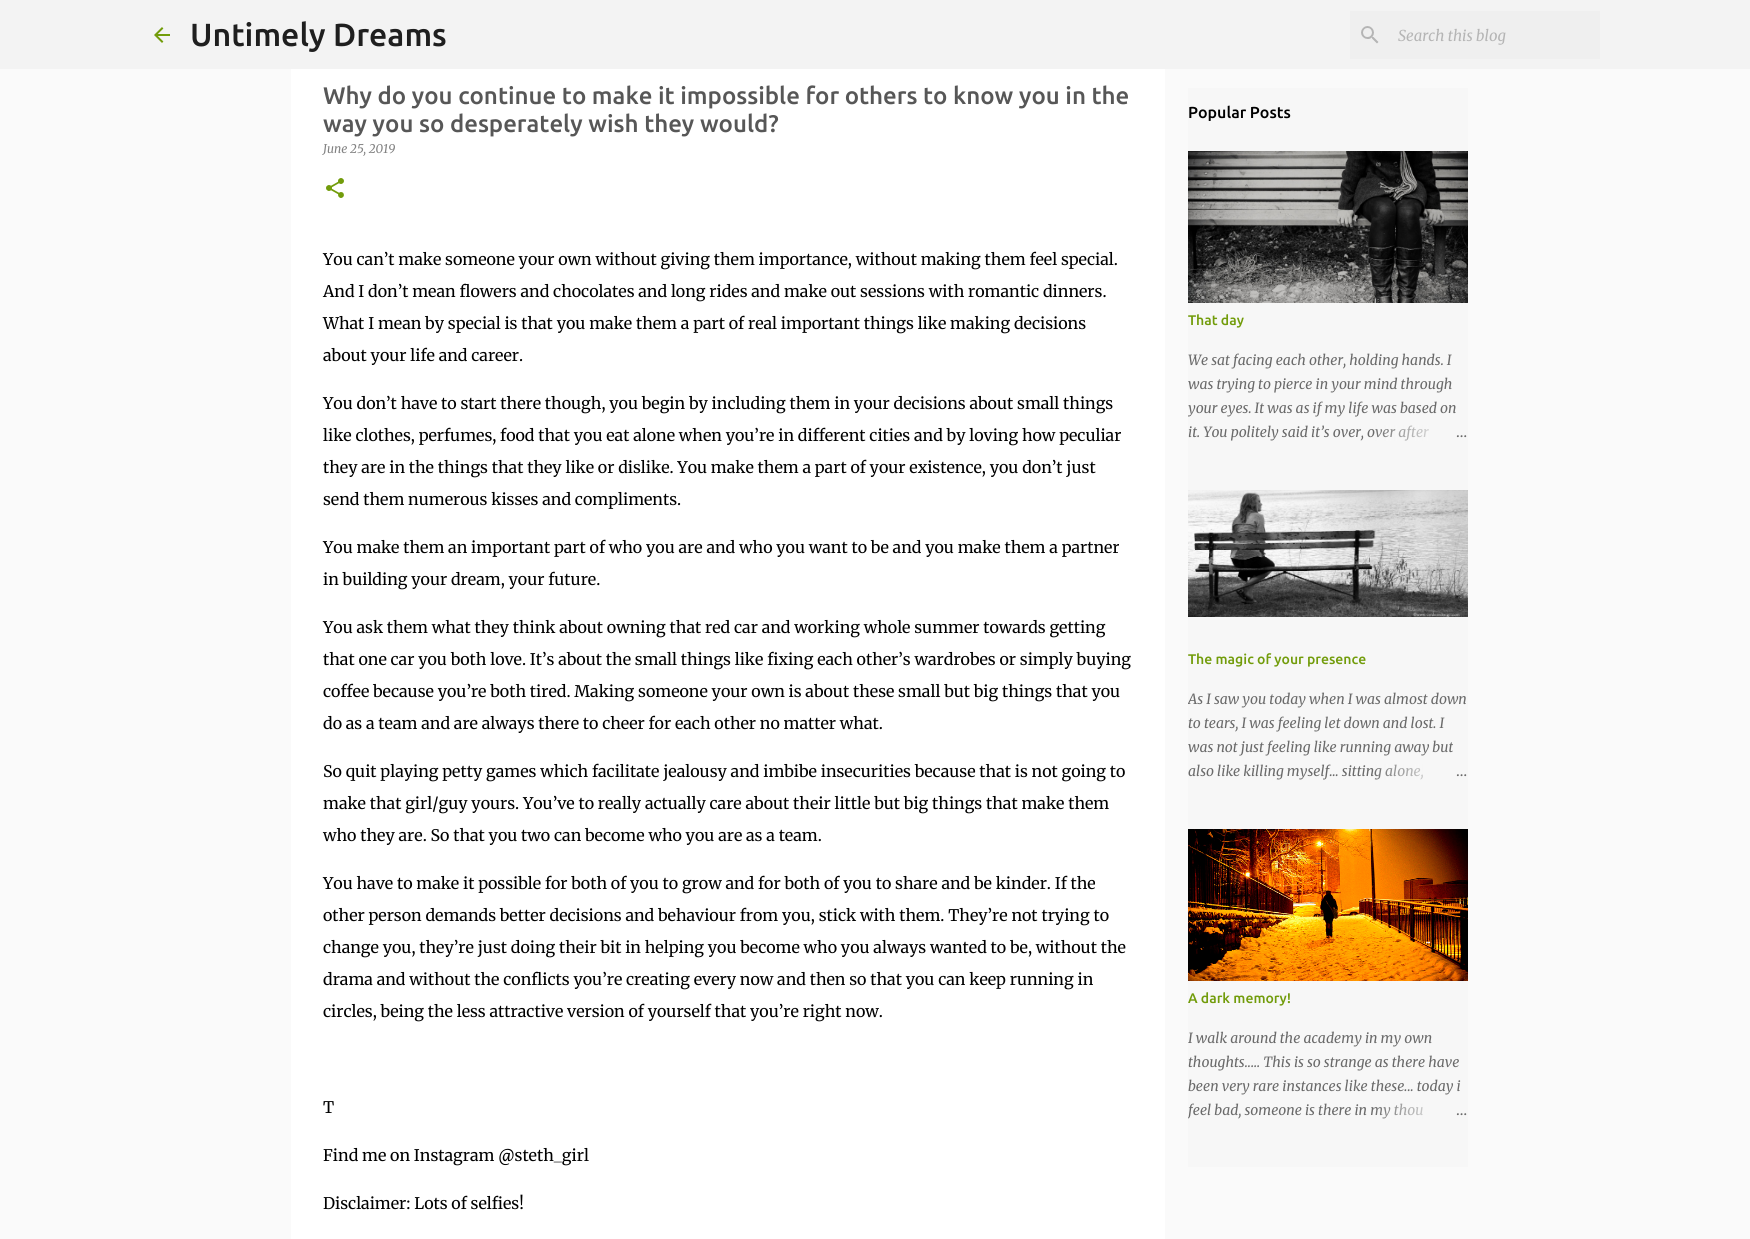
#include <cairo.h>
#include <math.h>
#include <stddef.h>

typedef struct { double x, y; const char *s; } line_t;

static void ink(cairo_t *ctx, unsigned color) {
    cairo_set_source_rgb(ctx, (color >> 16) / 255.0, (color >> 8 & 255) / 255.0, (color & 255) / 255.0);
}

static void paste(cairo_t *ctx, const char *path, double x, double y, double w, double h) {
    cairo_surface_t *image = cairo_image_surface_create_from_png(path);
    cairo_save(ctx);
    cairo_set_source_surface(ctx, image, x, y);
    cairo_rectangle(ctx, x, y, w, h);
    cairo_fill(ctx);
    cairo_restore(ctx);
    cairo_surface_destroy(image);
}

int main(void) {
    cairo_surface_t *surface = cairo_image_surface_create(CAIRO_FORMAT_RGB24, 1750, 1239);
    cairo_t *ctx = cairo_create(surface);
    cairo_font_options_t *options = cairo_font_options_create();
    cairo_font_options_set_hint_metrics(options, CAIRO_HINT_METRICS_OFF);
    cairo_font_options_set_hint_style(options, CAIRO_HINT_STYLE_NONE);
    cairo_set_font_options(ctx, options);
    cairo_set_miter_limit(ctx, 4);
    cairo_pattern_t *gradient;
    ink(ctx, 0xFAFAFA);
    cairo_paint(ctx);
    ink(ctx, 0xF3F3F3);
    cairo_rectangle(ctx, 0, 0, 1750, 69);
    cairo_fill(ctx);
    paste(ctx, "media/1.png", 154, 27, 16, 16);
    cairo_select_font_face(ctx, "Ubuntu Medium", CAIRO_FONT_SLANT_NORMAL, CAIRO_FONT_WEIGHT_NORMAL);
    cairo_set_font_size(ctx, 32);
    ink(ctx, 0x1F1F1F);
    cairo_move_to(ctx, 190, 46);
    cairo_show_text(ctx, "Untimely Dreams");
    ink(ctx, 0xEFEFEF);
    cairo_rectangle(ctx, 1350, 11, 250, 48);
    cairo_fill(ctx);
    paste(ctx, "media/2.png", 1361, 26, 18, 18);
    cairo_select_font_face(ctx, "Merriweather", CAIRO_FONT_SLANT_ITALIC, CAIRO_FONT_WEIGHT_NORMAL);
    cairo_set_font_size(ctx, 15);
    ink(ctx, 0xB5B5B5);
    cairo_move_to(ctx, 1398, 41);
    cairo_show_text(ctx, "Search this blog");
    ink(ctx, 0xFFFFFF);
    cairo_rectangle(ctx, 291, 69, 874, 1170);
    cairo_fill(ctx);
    cairo_select_font_face(ctx, "Ubuntu Medium", CAIRO_FONT_SLANT_NORMAL, CAIRO_FONT_WEIGHT_NORMAL);
    cairo_set_font_size(ctx, 24);
    ink(ctx, 0x575757);
    cairo_move_to(ctx, 323, 104);
    cairo_show_text(ctx, "Why do you continue to make it impossible for others to know you in the");
    cairo_move_to(ctx, 323, 132);
    cairo_show_text(ctx, "way you so desperately wish they would?");
    cairo_select_font_face(ctx, "Merriweather", CAIRO_FONT_SLANT_ITALIC, CAIRO_FONT_WEIGHT_NORMAL);
    cairo_set_font_size(ctx, 12);
    ink(ctx, 0x828282);
    cairo_move_to(ctx, 323, 153);
    cairo_show_text(ctx, "June 25, 2019");
    paste(ctx, "media/3.png", 326, 178, 18, 20);
    cairo_select_font_face(ctx, "Merriweather Light", CAIRO_FONT_SLANT_NORMAL, CAIRO_FONT_WEIGHT_NORMAL);
    cairo_set_font_size(ctx, 16);
    ink(ctx, 0x000000);
    {
        static const line_t items[] = {
            {323, 265, "You can’t make someone your own without giving them importance, without making them feel special."},
            {323, 297, "And I don’t mean flowers and chocolates and long rides and make out sessions with romantic dinners."},
            {323, 329, "What I mean by special is that you make them a part of real important things like making decisions"},
            {323, 361, "about your life and career."},
            {323, 409, "You don’t have to start there though, you begin by including them in your decisions about small things"},
            {323, 441, "like clothes, perfumes, food that you eat alone when you’re in different cities and by loving how peculiar"},
            {323, 473, "they are in the things that they like or dislike. You make them a part of your existence, you don’t just"},
            {323, 505, "send them numerous kisses and compliments."},
            {323, 553, "You make them an important part of who you are and who you want to be and you make them a partner"},
            {323, 585, "in building your dream, your future."},
            {323, 633, "You ask them what they think about owning that red car and working whole summer towards getting"},
            {323, 665, "that one car you both love. It’s about the small things like fixing each other’s wardrobes or simply buying"},
            {323, 697, "coffee because you’re both tired. Making someone your own is about these small but big things that you"},
            {323, 729, "do as a team and are always there to cheer for each other no matter what."},
            {323, 777, "So quit playing petty games which facilitate jealousy and imbibe insecurities because that is not going to"},
            {323, 809, "make that girl/guy yours. You’ve to really actually care about their little but big things that make them"},
            {323, 841, "who they are. So that you two can become who you are as a team."},
            {323, 889, "You have to make it possible for both of you to grow and for both of you to share and be kinder. If the"},
            {323, 921, "other person demands better decisions and behaviour from you, stick with them. They’re not trying to"},
            {323, 953, "change you, they’re just doing their bit in helping you become who you always wanted to be, without the"},
            {323, 985, "drama and without the conflicts you’re creating every now and then so that you can keep running in"},
            {323, 1017, "circles, being the less attractive version of yourself that you’re right now."},
            {323, 1113, "T"},
            {323, 1161, "Find me on Instagram @steth_girl"},
            {323, 1209, "Disclaimer: Lots of selfies!"},
        };
        for (size_t i = 0; i < sizeof items / sizeof *items; i++) {
            cairo_move_to(ctx, items[i].x, items[i].y);
            cairo_show_text(ctx, items[i].s);
        }
    }
    ink(ctx, 0xF7F7F7);
    cairo_rectangle(ctx, 1188, 88, 280, 1079);
    cairo_fill(ctx);
    cairo_select_font_face(ctx, "Ubuntu Medium", CAIRO_FONT_SLANT_NORMAL, CAIRO_FONT_WEIGHT_NORMAL);
    ink(ctx, 0x000000);
    cairo_move_to(ctx, 1188, 118);
    cairo_show_text(ctx, "Popular Posts");
    paste(ctx, "media/4.png", 1188, 151, 280, 152);
    cairo_set_font_size(ctx, 14);
    ink(ctx, 0x729C0B);
    cairo_move_to(ctx, 1188, 325);
    cairo_show_text(ctx, "That day");
    cairo_select_font_face(ctx, "Merriweather", CAIRO_FONT_SLANT_ITALIC, CAIRO_FONT_WEIGHT_NORMAL);
    ink(ctx, 0x6A6A6A);
    cairo_move_to(ctx, 1188, 365);
    cairo_show_text(ctx, "We sat facing each other, holding hands. I");
    cairo_move_to(ctx, 1188, 389);
    cairo_show_text(ctx, "was trying to pierce in your mind through");
    cairo_save(ctx);
    cairo_rectangle(ctx, 1188, 348, 280, 96);
    cairo_clip(ctx);
    cairo_move_to(ctx, 1188, 413);
    cairo_show_text(ctx, "your eyes. It was as if my life was based on");
    cairo_restore(ctx);
    cairo_move_to(ctx, 1188, 437);
    cairo_show_text(ctx, "it. You politely said it’s over, over after");
    gradient = cairo_pattern_create_linear(1468, 432, 1372, 432);
    cairo_pattern_add_color_stop_rgba(gradient, 0, 0.969, 0.969, 0.969, 1);
    cairo_pattern_add_color_stop_rgba(gradient, 0.2, 0.969, 0.969, 0.969, 1);
    cairo_pattern_add_color_stop_rgba(gradient, 1, 0.969, 0.969, 0.969, 0);
    cairo_set_source(ctx, gradient);
    cairo_pattern_destroy(gradient);
    cairo_rectangle(ctx, 1375, 425, 54, 16);
    cairo_fill(ctx);
    cairo_select_font_face(ctx, "Merriweather Light", CAIRO_FONT_SLANT_NORMAL, CAIRO_FONT_WEIGHT_NORMAL);
    ink(ctx, 0x6A6A6A);
    cairo_move_to(ctx, 1456, 437);
    cairo_show_text(ctx, "…");
    paste(ctx, "media/5.png", 1188, 490, 280, 127);
    cairo_select_font_face(ctx, "Ubuntu Medium", CAIRO_FONT_SLANT_NORMAL, CAIRO_FONT_WEIGHT_NORMAL);
    ink(ctx, 0x729C0B);
    cairo_move_to(ctx, 1188, 664);
    cairo_show_text(ctx, "The magic of your presence");
    cairo_save(ctx);
    cairo_rectangle(ctx, 1188, 687, 280, 96);
    cairo_clip(ctx);
    cairo_select_font_face(ctx, "Merriweather", CAIRO_FONT_SLANT_ITALIC, CAIRO_FONT_WEIGHT_NORMAL);
    ink(ctx, 0x6A6A6A);
    cairo_move_to(ctx, 1188, 704);
    cairo_show_text(ctx, "As I saw you today when I was almost down");
    cairo_restore(ctx);
    cairo_select_font_face(ctx, "Merriweather", CAIRO_FONT_SLANT_ITALIC, CAIRO_FONT_WEIGHT_NORMAL);
    ink(ctx, 0x6A6A6A);
    {
        static const line_t items[] = {
            {1188, 728, "to tears, I was feeling let down and lost. I"},
            {1188, 752, "was not just feeling like running away but"},
            {1188, 776, "also like killing myself... sitting alone,"},
        };
        for (size_t i = 0; i < sizeof items / sizeof *items; i++) {
            cairo_move_to(ctx, items[i].x, items[i].y);
            cairo_show_text(ctx, items[i].s);
        }
    }
    gradient = cairo_pattern_create_linear(1468, 771, 1372, 771);
    cairo_pattern_add_color_stop_rgba(gradient, 0, 0.969, 0.969, 0.969, 1);
    cairo_pattern_add_color_stop_rgba(gradient, 0.2, 0.969, 0.969, 0.969, 1);
    cairo_pattern_add_color_stop_rgba(gradient, 1, 0.969, 0.969, 0.969, 0);
    cairo_set_source(ctx, gradient);
    cairo_pattern_destroy(gradient);
    cairo_rectangle(ctx, 1374, 764, 49, 16);
    cairo_fill(ctx);
    cairo_select_font_face(ctx, "Merriweather Light", CAIRO_FONT_SLANT_NORMAL, CAIRO_FONT_WEIGHT_NORMAL);
    ink(ctx, 0x6A6A6A);
    cairo_move_to(ctx, 1456, 776);
    cairo_show_text(ctx, "…");
    paste(ctx, "media/6.png", 1188, 829, 280, 152);
    cairo_select_font_face(ctx, "Ubuntu Medium", CAIRO_FONT_SLANT_NORMAL, CAIRO_FONT_WEIGHT_NORMAL);
    ink(ctx, 0x729C0B);
    cairo_move_to(ctx, 1188, 1003);
    cairo_show_text(ctx, "A dark memory!");
    cairo_select_font_face(ctx, "Merriweather", CAIRO_FONT_SLANT_ITALIC, CAIRO_FONT_WEIGHT_NORMAL);
    ink(ctx, 0x6A6A6A);
    {
        static const line_t items[] = {
            {1188, 1043, "I walk around the academy in my own"},
            {1188, 1067, "thoughts..... This is so strange as there have"},
            {1188, 1091, "been very rare instances like these... today i"},
        };
        for (size_t i = 0; i < sizeof items / sizeof *items; i++) {
            cairo_move_to(ctx, items[i].x, items[i].y);
            cairo_show_text(ctx, items[i].s);
        }
    }
    cairo_save(ctx);
    cairo_rectangle(ctx, 1188, 1026, 280, 96);
    cairo_clip(ctx);
    cairo_move_to(ctx, 1188, 1115);
    cairo_show_text(ctx, "feel bad, someone is there in my thou");
    cairo_restore(ctx);
    gradient = cairo_pattern_create_linear(1468, 1110, 1372, 1110);
    cairo_pattern_add_color_stop_rgba(gradient, 0, 0.969, 0.969, 0.969, 1);
    cairo_pattern_add_color_stop_rgba(gradient, 0.2, 0.969, 0.969, 0.969, 1);
    cairo_pattern_add_color_stop_rgba(gradient, 1, 0.969, 0.969, 0.969, 0);
    cairo_set_source(ctx, gradient);
    cairo_pattern_destroy(gradient);
    cairo_rectangle(ctx, 1374, 1103, 49, 16);
    cairo_fill(ctx);
    cairo_select_font_face(ctx, "Merriweather Light", CAIRO_FONT_SLANT_NORMAL, CAIRO_FONT_WEIGHT_NORMAL);
    ink(ctx, 0x6A6A6A);
    cairo_move_to(ctx, 1456, 1115);
    cairo_show_text(ctx, "…");
    cairo_surface_write_to_png(surface, "image.png");
    cairo_font_options_destroy(options);
    cairo_destroy(ctx);
    cairo_surface_destroy(surface);
    return 0;
}
